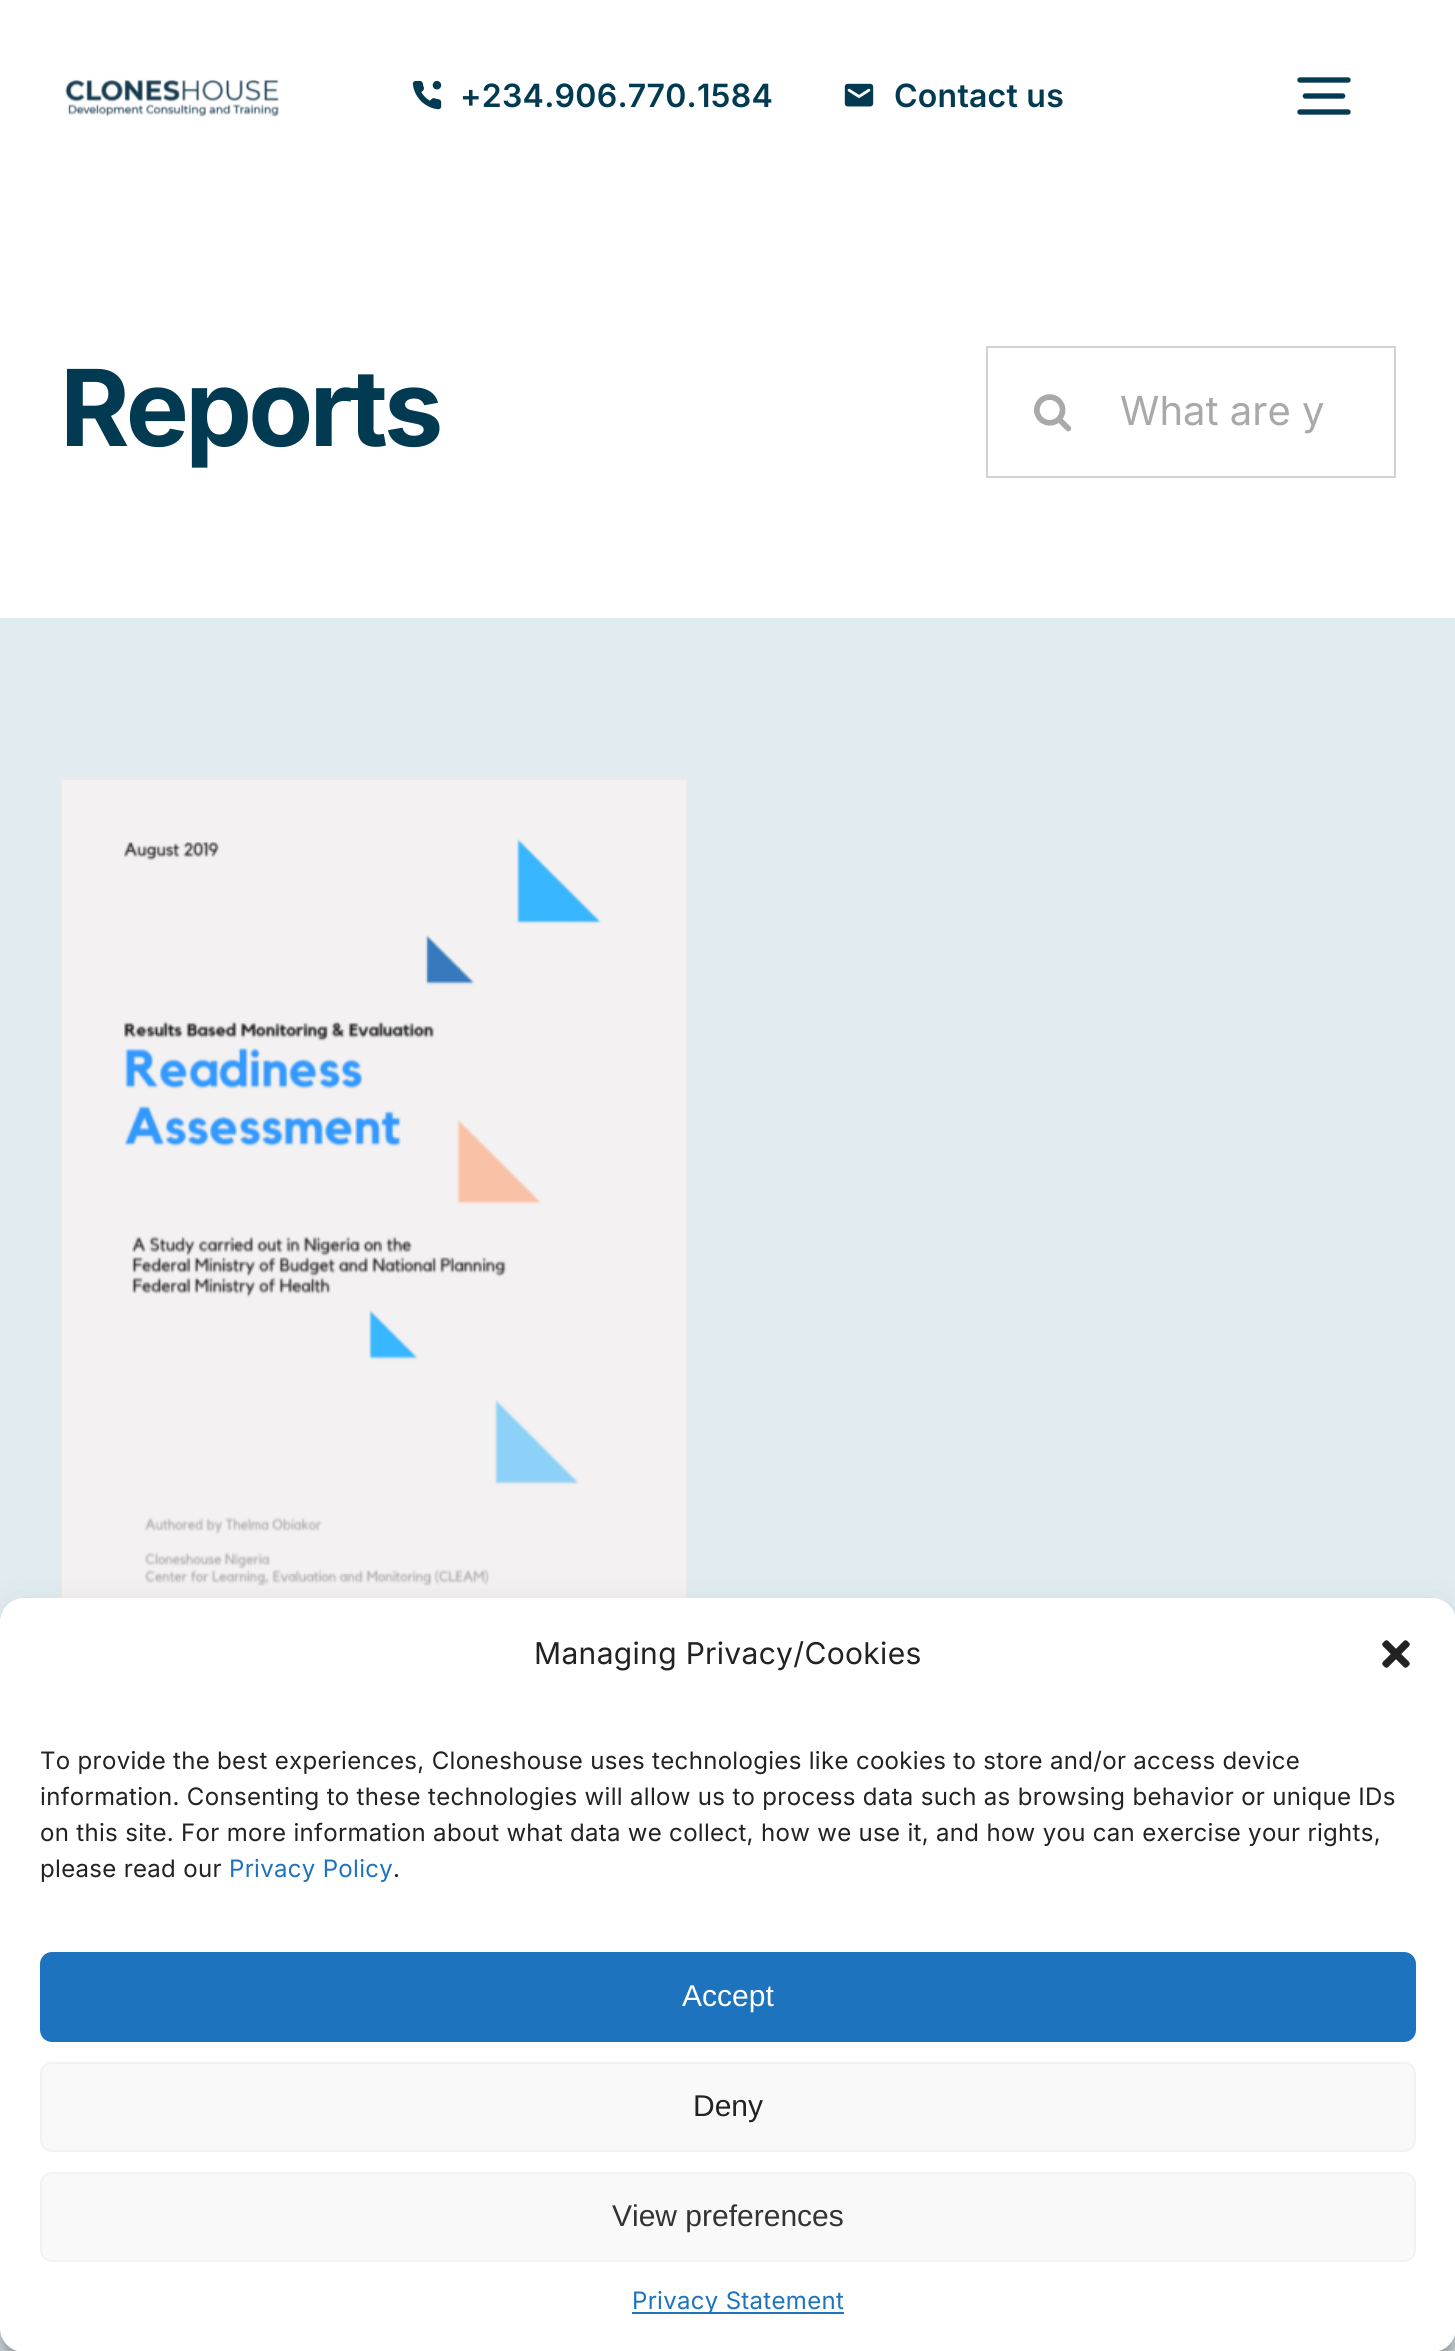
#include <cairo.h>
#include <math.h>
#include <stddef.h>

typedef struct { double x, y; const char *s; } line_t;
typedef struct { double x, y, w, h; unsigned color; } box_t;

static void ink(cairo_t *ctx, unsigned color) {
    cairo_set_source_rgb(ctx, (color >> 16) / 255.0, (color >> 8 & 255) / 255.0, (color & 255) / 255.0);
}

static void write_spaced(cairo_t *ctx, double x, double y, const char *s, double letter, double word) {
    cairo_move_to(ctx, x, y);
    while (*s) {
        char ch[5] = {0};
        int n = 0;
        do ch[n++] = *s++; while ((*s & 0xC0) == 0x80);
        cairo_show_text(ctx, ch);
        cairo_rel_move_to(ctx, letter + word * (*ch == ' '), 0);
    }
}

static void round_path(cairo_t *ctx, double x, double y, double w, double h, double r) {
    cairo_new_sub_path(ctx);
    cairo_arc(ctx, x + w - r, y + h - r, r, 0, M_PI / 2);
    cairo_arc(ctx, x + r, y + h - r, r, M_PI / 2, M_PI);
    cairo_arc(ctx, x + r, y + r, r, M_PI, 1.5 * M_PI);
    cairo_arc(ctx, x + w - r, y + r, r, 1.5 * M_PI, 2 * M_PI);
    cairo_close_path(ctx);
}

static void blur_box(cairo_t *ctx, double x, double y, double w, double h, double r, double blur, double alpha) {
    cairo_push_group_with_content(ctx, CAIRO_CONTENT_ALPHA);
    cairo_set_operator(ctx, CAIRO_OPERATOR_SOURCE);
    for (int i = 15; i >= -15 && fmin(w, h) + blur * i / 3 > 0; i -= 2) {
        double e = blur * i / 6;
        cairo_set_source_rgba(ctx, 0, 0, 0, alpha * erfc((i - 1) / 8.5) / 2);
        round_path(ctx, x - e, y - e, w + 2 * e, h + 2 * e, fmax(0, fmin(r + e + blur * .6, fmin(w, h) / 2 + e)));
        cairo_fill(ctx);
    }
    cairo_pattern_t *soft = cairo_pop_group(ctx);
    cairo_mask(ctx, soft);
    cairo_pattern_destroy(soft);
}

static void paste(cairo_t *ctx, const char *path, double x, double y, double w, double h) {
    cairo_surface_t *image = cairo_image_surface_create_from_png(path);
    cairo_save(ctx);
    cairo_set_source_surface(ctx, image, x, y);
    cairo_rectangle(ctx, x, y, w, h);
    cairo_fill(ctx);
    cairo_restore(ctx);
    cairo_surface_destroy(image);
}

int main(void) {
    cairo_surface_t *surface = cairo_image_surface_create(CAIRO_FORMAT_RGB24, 1455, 2351);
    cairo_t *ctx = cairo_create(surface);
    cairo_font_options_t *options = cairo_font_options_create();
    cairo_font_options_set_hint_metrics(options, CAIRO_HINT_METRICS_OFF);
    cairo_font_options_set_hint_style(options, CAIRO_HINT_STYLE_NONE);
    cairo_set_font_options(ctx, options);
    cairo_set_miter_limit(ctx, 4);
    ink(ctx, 0xFFFFFF);
    cairo_paint(ctx);
    paste(ctx, "media/1.png", 65, 79, 214, 38);
    paste(ctx, "media/2.png", 412, 80, 30, 30);
    cairo_select_font_face(ctx, "Inter SemiBold", CAIRO_FONT_SLANT_NORMAL, CAIRO_FONT_WEIGHT_NORMAL);
    cairo_set_font_size(ctx, 32);
    ink(ctx, 0x023A51);
    write_spaced(ctx, 460, 107, "+234.906.770.1584", 0.25, 0);
    paste(ctx, "media/3.png", 844, 83, 30, 24);
    write_spaced(ctx, 894, 107, "Contact us", 0.25, 0);
    paste(ctx, "media/4.png", 1297, 77, 54, 38);
    cairo_select_font_face(ctx, "Inter", CAIRO_FONT_SLANT_NORMAL, CAIRO_FONT_WEIGHT_BOLD);
    cairo_set_font_size(ctx, 106);
    write_spaced(ctx, 60, 446, "Reports", -3.75, 0);
    cairo_rectangle(ctx, 987, 347, 408, 130);
    ink(ctx, 0xD2D2D2);
    cairo_stroke(ctx);
    paste(ctx, "media/5.png", 1034, 394, 38, 38);
    cairo_select_font_face(ctx, "Inter", CAIRO_FONT_SLANT_NORMAL, CAIRO_FONT_WEIGHT_NORMAL);
    cairo_set_font_size(ctx, 40);
    ink(ctx, 0xAAA9A9);
    cairo_move_to(ctx, 1120, 425);
    cairo_show_text(ctx, "What are y");
    {
        static const box_t items[] = {
            {0, 618, 1455, 1733, 0xE0ECF0},
            {60, 778, 628, 2, 0xEBEAEA},
            {686, 778, 2, 820, 0xEBEAEA},
            {60, 778, 2, 820, 0xEBEAEA},
        };
        for (size_t i = 0; i < sizeof items / sizeof *items; i++) {
            ink(ctx, items[i].color);
            cairo_rectangle(ctx, items[i].x, items[i].y, items[i].w, items[i].h);
            cairo_fill(ctx);
        }
    }
    paste(ctx, "media/6.png", 62, 780, 624, 818);
    ink(ctx, 0x000000);
    blur_box(ctx, 0, 1610, 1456, 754, 24, 6, 0.23);
    blur_box(ctx, 0, 1618, 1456, 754, 24, 20, 0.19);
    ink(ctx, 0xFFFFFF);
    round_path(ctx, 0, 1598, 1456, 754, 24);
    cairo_fill(ctx);
    cairo_set_font_size(ctx, 30);
    ink(ctx, 0x222222);
    write_spaced(ctx, 534, 1664, "Managing Privacy/Cookies", 0.32, 0);
    paste(ctx, "media/7.png", 1382, 1640, 28, 28);
    cairo_set_font_size(ctx, 24);
    {
        static const line_t items[] = {
            {40, 1769, "To provide the best experiences, Cloneshouse uses technologies like cookies to store and/or access device"},
            {40, 1805, "information. Consenting to these technologies will allow us to process data such as browsing behavior or unique IDs"},
            {40, 1841, "on this site. For more information about what data we collect, how we use it, and how you can exercise your rights,"},
            {40, 1877, "please read our"},
        };
        for (size_t i = 0; i < sizeof items / sizeof *items; i++) {
            write_spaced(ctx, items[i].x, items[i].y, items[i].s, 0.32, 0);
        }
    }
    ink(ctx, 0x1E73BE);
    write_spaced(ctx, 229, 1877, "Privacy Policy", 0.32, 0);
    ink(ctx, 0x222222);
    write_spaced(ctx, 393, 1877, ".", 0.32, 0);
    ink(ctx, 0x1E73BE);
    round_path(ctx, 41, 1953, 1374, 88, 11);
    cairo_fill_preserve(ctx);
    cairo_stroke(ctx);
    cairo_select_font_face(ctx, "Liberation Sans", CAIRO_FONT_SLANT_NORMAL, CAIRO_FONT_WEIGHT_NORMAL);
    cairo_set_font_size(ctx, 30);
    ink(ctx, 0xFFFFFF);
    cairo_move_to(ctx, 682, 2006);
    cairo_show_text(ctx, "Accept");
    ink(ctx, 0xF9F9F9);
    round_path(ctx, 41, 2063, 1374, 88, 11);
    cairo_fill_preserve(ctx);
    ink(ctx, 0xF2F2F2);
    cairo_stroke(ctx);
    ink(ctx, 0x222222);
    cairo_move_to(ctx, 693, 2116);
    cairo_show_text(ctx, "Deny");
    ink(ctx, 0xF9F9F9);
    round_path(ctx, 41, 2173, 1374, 88, 11);
    cairo_fill_preserve(ctx);
    ink(ctx, 0xF2F2F2);
    cairo_stroke(ctx);
    ink(ctx, 0x333333);
    cairo_move_to(ctx, 612, 2226);
    cairo_show_text(ctx, "View preferences");
    ink(ctx, 0x1E73BE);
    cairo_rectangle(ctx, 632, 2312, 212, 2);
    cairo_fill(ctx);
    cairo_select_font_face(ctx, "Inter", CAIRO_FONT_SLANT_NORMAL, CAIRO_FONT_WEIGHT_NORMAL);
    cairo_set_font_size(ctx, 24);
    write_spaced(ctx, 632, 2309, "Privacy Statement", 0.32, 0);
    cairo_surface_write_to_png(surface, "image.png");
    cairo_font_options_destroy(options);
    cairo_destroy(ctx);
    cairo_surface_destroy(surface);
    return 0;
}
